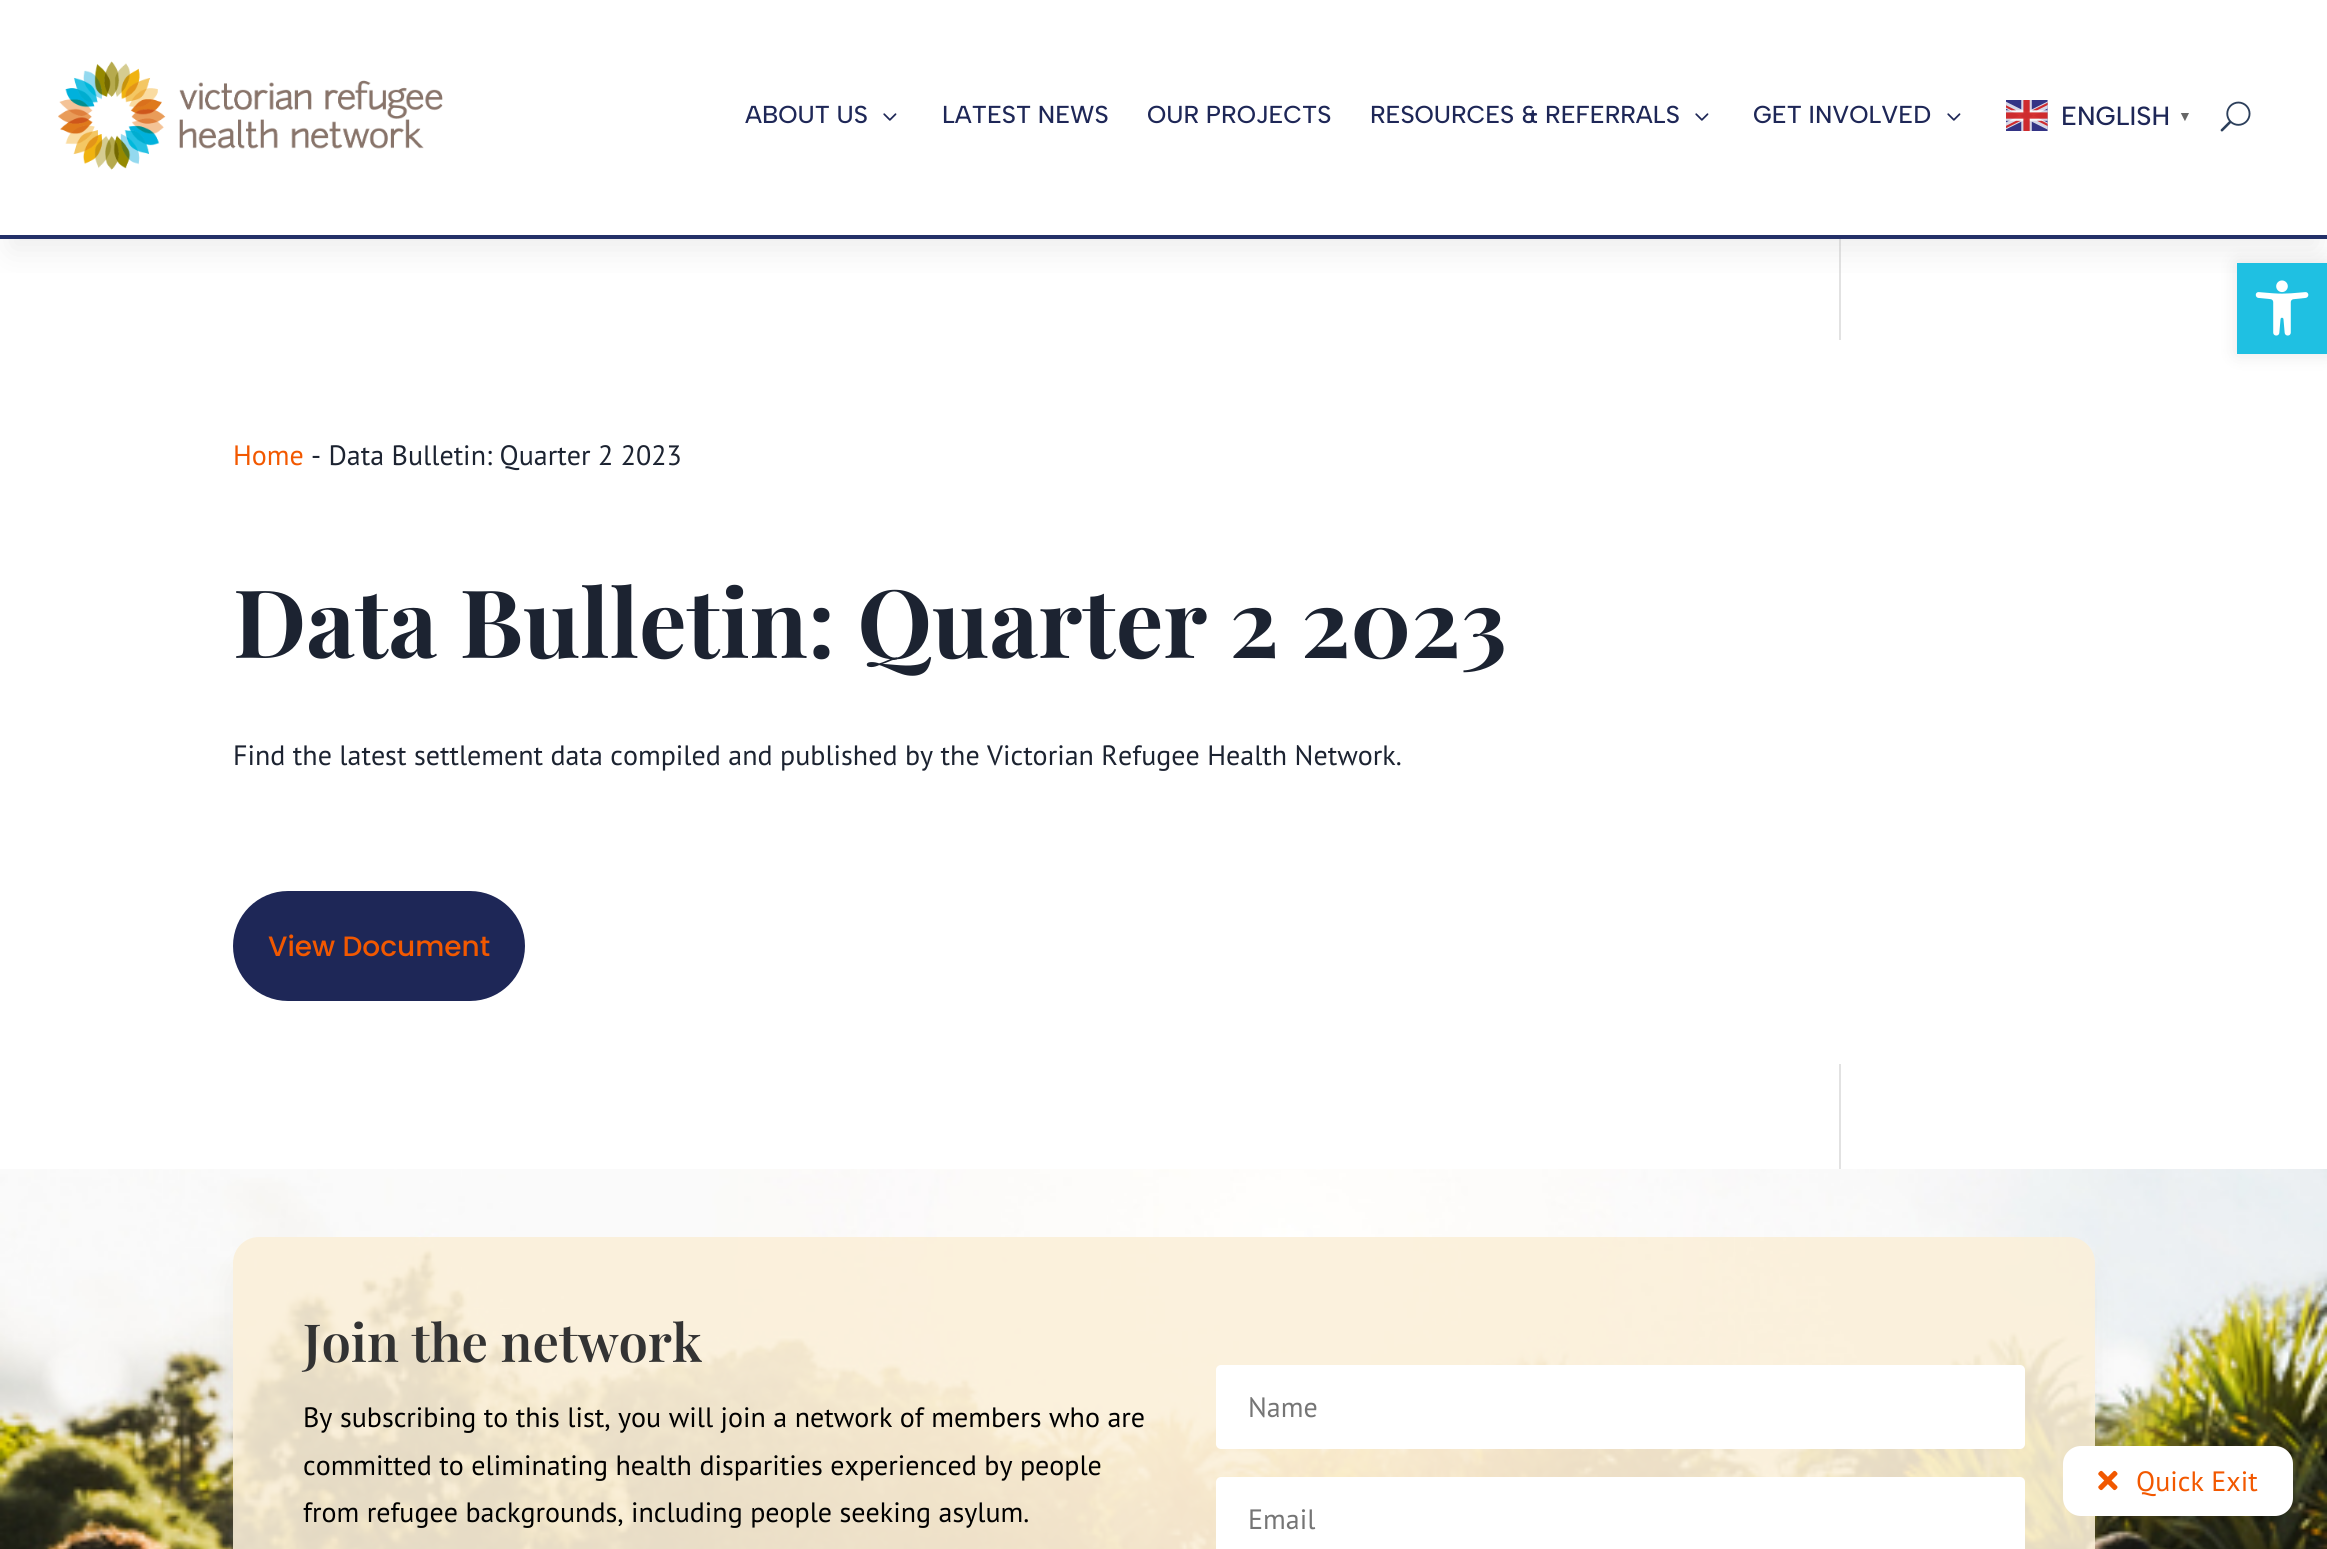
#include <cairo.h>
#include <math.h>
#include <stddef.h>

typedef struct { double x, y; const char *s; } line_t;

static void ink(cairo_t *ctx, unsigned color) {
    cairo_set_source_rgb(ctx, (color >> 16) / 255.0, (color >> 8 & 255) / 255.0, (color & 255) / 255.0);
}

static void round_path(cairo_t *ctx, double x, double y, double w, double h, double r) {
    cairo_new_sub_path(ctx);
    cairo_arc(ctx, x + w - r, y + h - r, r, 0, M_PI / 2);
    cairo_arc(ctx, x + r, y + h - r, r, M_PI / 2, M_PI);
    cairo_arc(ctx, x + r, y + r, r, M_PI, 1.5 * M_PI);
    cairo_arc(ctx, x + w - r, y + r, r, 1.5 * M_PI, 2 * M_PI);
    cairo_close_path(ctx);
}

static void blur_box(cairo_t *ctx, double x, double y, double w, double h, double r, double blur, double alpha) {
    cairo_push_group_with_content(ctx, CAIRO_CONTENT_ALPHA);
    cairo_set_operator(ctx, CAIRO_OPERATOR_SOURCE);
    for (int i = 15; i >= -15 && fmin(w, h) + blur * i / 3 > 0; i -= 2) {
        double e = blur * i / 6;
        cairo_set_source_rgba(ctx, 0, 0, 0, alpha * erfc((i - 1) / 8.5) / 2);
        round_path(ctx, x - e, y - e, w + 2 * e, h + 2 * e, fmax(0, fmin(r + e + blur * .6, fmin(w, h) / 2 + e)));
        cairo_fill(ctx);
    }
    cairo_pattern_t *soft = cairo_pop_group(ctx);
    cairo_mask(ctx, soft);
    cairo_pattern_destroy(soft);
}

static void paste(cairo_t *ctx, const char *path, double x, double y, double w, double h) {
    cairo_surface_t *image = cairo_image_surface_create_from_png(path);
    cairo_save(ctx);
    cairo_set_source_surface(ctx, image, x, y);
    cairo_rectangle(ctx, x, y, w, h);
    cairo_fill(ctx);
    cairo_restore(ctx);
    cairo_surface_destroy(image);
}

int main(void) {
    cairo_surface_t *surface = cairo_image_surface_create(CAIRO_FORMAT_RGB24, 2327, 1549);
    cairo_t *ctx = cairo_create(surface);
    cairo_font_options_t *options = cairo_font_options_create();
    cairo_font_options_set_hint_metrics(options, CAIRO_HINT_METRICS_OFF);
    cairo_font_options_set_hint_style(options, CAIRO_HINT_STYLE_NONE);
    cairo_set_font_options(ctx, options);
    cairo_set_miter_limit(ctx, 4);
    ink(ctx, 0xFFFFFF);
    cairo_paint(ctx);
    ink(ctx, 0xE2E2E2);
    cairo_rectangle(ctx, 1839, 238, 2, 931);
    cairo_fill(ctx);
    cairo_save(ctx);
    cairo_rectangle(ctx, 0, 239, 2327, 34);
    cairo_clip(ctx);
    ink(ctx, 0xBFBFBF);
    blur_box(ctx, 11, 25, 2306, 224, 0, 16, 0.3);
    cairo_restore(ctx);
    ink(ctx, 0x233068);
    cairo_rectangle(ctx, 0, 235, 2327, 4);
    cairo_fill(ctx);
    paste(ctx, "media/1.png", 58, 61, 385, 109);
    cairo_select_font_face(ctx, "Albert Sans Medium", CAIRO_FONT_SLANT_NORMAL, CAIRO_FONT_WEIGHT_NORMAL);
    cairo_set_font_size(ctx, 24.5);
    ink(ctx, 0x1E2757);
    cairo_move_to(ctx, 745, 123);
    cairo_show_text(ctx, "ABOUT US");
    paste(ctx, "media/2.png", 883, 113, 14, 8);
    {
        static const line_t items[] = {
            {942, 123, "LATEST NEWS"},
            {1147, 123, "OUR PROJECTS"},
            {1370, 123, "RESOURCES & REFERRALS"},
        };
        for (size_t i = 0; i < sizeof items / sizeof *items; i++) {
            cairo_move_to(ctx, items[i].x, items[i].y);
            cairo_show_text(ctx, items[i].s);
        }
    }
    paste(ctx, "media/2.png", 1695, 113, 14, 8);
    cairo_move_to(ctx, 1753, 123);
    cairo_show_text(ctx, "GET INVOLVED");
    paste(ctx, "media/2.png", 1947, 113, 14, 8);
    paste(ctx, "media/3.png", 2006, 100, 42, 31);
    cairo_set_font_size(ctx, 26.25);
    cairo_move_to(ctx, 2061, 125);
    cairo_show_text(ctx, "ENGLISH");
    cairo_select_font_face(ctx, "Liberation Sans", CAIRO_FONT_SLANT_NORMAL, CAIRO_FONT_WEIGHT_BOLD);
    cairo_set_font_size(ctx, 14);
    ink(ctx, 0x666666);
    cairo_move_to(ctx, 2178, 121);
    cairo_show_text(ctx, "▼");
    paste(ctx, "media/4.png", 2220, 101, 31, 31);
    ink(ctx, 0xFFFFFF);
    cairo_rectangle(ctx, 1839, 340, 2, 724);
    cairo_fill(ctx);
    cairo_select_font_face(ctx, "PT Sans", CAIRO_FONT_SLANT_NORMAL, CAIRO_FONT_WEIGHT_NORMAL);
    cairo_set_font_size(ctx, 28);
    ink(ctx, 0xF25800);
    cairo_move_to(ctx, 233, 465);
    cairo_show_text(ctx, "Home");
    ink(ctx, 0x1C2331);
    cairo_move_to(ctx, 311, 465);
    cairo_show_text(ctx, "- Data Bulletin: Quarter 2 2023");
    cairo_select_font_face(ctx, "Playfair Display", CAIRO_FONT_SLANT_NORMAL, CAIRO_FONT_WEIGHT_BOLD);
    cairo_set_font_size(ctx, 94.5);
    cairo_move_to(ctx, 233, 658);
    cairo_show_text(ctx, "Data Bulletin: Quarter 2 2023");
    cairo_select_font_face(ctx, "PT Sans", CAIRO_FONT_SLANT_NORMAL, CAIRO_FONT_WEIGHT_NORMAL);
    cairo_set_font_size(ctx, 28);
    cairo_move_to(ctx, 233, 765);
    cairo_show_text(ctx, "Find the latest settlement data compiled and published by the Victorian Refugee Health Network.");
    ink(ctx, 0x1E2757);
    round_path(ctx, 233, 891, 292, 110, 55);
    cairo_fill(ctx);
    cairo_select_font_face(ctx, "Poppins Medium", CAIRO_FONT_SLANT_NORMAL, CAIRO_FONT_WEIGHT_NORMAL);
    ink(ctx, 0xF25800);
    cairo_move_to(ctx, 268, 956);
    cairo_show_text(ctx, "View Document");
    paste(ctx, "media/5.png", 0, 1169, 2327, 380);
    cairo_save(ctx);
    cairo_set_fill_rule(ctx, CAIRO_FILL_RULE_EVEN_ODD);
    cairo_new_path(ctx);
    cairo_move_to(ctx, 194, 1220);
    cairo_line_to(ctx, 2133, 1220);
    cairo_line_to(ctx, 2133, 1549);
    cairo_line_to(ctx, 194, 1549);
    cairo_close_path(ctx);
    cairo_move_to(ctx, 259, 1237);
    cairo_line_to(ctx, 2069, 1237);
    cairo_curve_to(ctx, 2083.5, 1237, 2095, 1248.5, 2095, 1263);
    cairo_line_to(ctx, 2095, 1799);
    cairo_curve_to(ctx, 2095, 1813.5, 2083.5, 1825, 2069, 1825);
    cairo_line_to(ctx, 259, 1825);
    cairo_curve_to(ctx, 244.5, 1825, 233, 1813.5, 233, 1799);
    cairo_line_to(ctx, 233, 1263);
    cairo_curve_to(ctx, 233, 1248.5, 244.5, 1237, 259, 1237);
    cairo_close_path(ctx);
    cairo_clip(ctx);
    ink(ctx, 0xB2B2B2);
    blur_box(ctx, 243, 1269, 1841, 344, 16, 16, 0.3);
    cairo_restore(ctx);
    cairo_set_source_rgba(ctx, 0.98, 0.937, 0.851, 0.89);
    round_path(ctx, 233, 1237, 1862, 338, 26);
    cairo_fill(ctx);
    cairo_select_font_face(ctx, "Playfair Display SemiBold", CAIRO_FONT_SLANT_NORMAL, CAIRO_FONT_WEIGHT_NORMAL);
    cairo_set_font_size(ctx, 52.5);
    ink(ctx, 0x333333);
    cairo_move_to(ctx, 303, 1362);
    cairo_show_text(ctx, "Join the network");
    cairo_select_font_face(ctx, "PT Sans", CAIRO_FONT_SLANT_NORMAL, CAIRO_FONT_WEIGHT_NORMAL);
    cairo_set_font_size(ctx, 28);
    ink(ctx, 0x000000);
    {
        static const line_t items[] = {
            {303, 1427, "By subscribing to this list, you will join a network of members who are"},
            {303, 1475, "committed to eliminating health disparities experienced by people"},
            {303, 1522, "from refugee backgrounds, including people seeking asylum."},
        };
        for (size_t i = 0; i < sizeof items / sizeof *items; i++) {
            cairo_move_to(ctx, items[i].x, items[i].y);
            cairo_show_text(ctx, items[i].s);
        }
    }
    ink(ctx, 0xFFFFFF);
    round_path(ctx, 1216, 1365, 809, 84, 5);
    cairo_fill(ctx);
    ink(ctx, 0x757575);
    cairo_move_to(ctx, 1248, 1417);
    cairo_show_text(ctx, "Name");
    ink(ctx, 0xFFFFFF);
    round_path(ctx, 1216, 1477, 809, 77, 5);
    cairo_fill(ctx);
    ink(ctx, 0x757575);
    cairo_move_to(ctx, 1248, 1529);
    cairo_show_text(ctx, "Email");
    ink(ctx, 0x000000);
    blur_box(ctx, 2237, 263, 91, 91, 0, 9, 0.1);
    ink(ctx, 0x1FC0E2);
    cairo_rectangle(ctx, 2237, 263, 90, 91);
    cairo_fill(ctx);
    paste(ctx, "media/6.png", 2255, 280, 54, 56);
    ink(ctx, 0xFFFFFF);
    round_path(ctx, 2063, 1446, 230, 70, 18);
    cairo_fill(ctx);
    paste(ctx, "media/7.png", 2098, 1470, 20, 21);
    ink(ctx, 0xF25800);
    cairo_move_to(ctx, 2136, 1491);
    cairo_show_text(ctx, "Quick Exit");
    cairo_surface_write_to_png(surface, "image.png");
    cairo_font_options_destroy(options);
    cairo_destroy(ctx);
    cairo_surface_destroy(surface);
    return 0;
}
